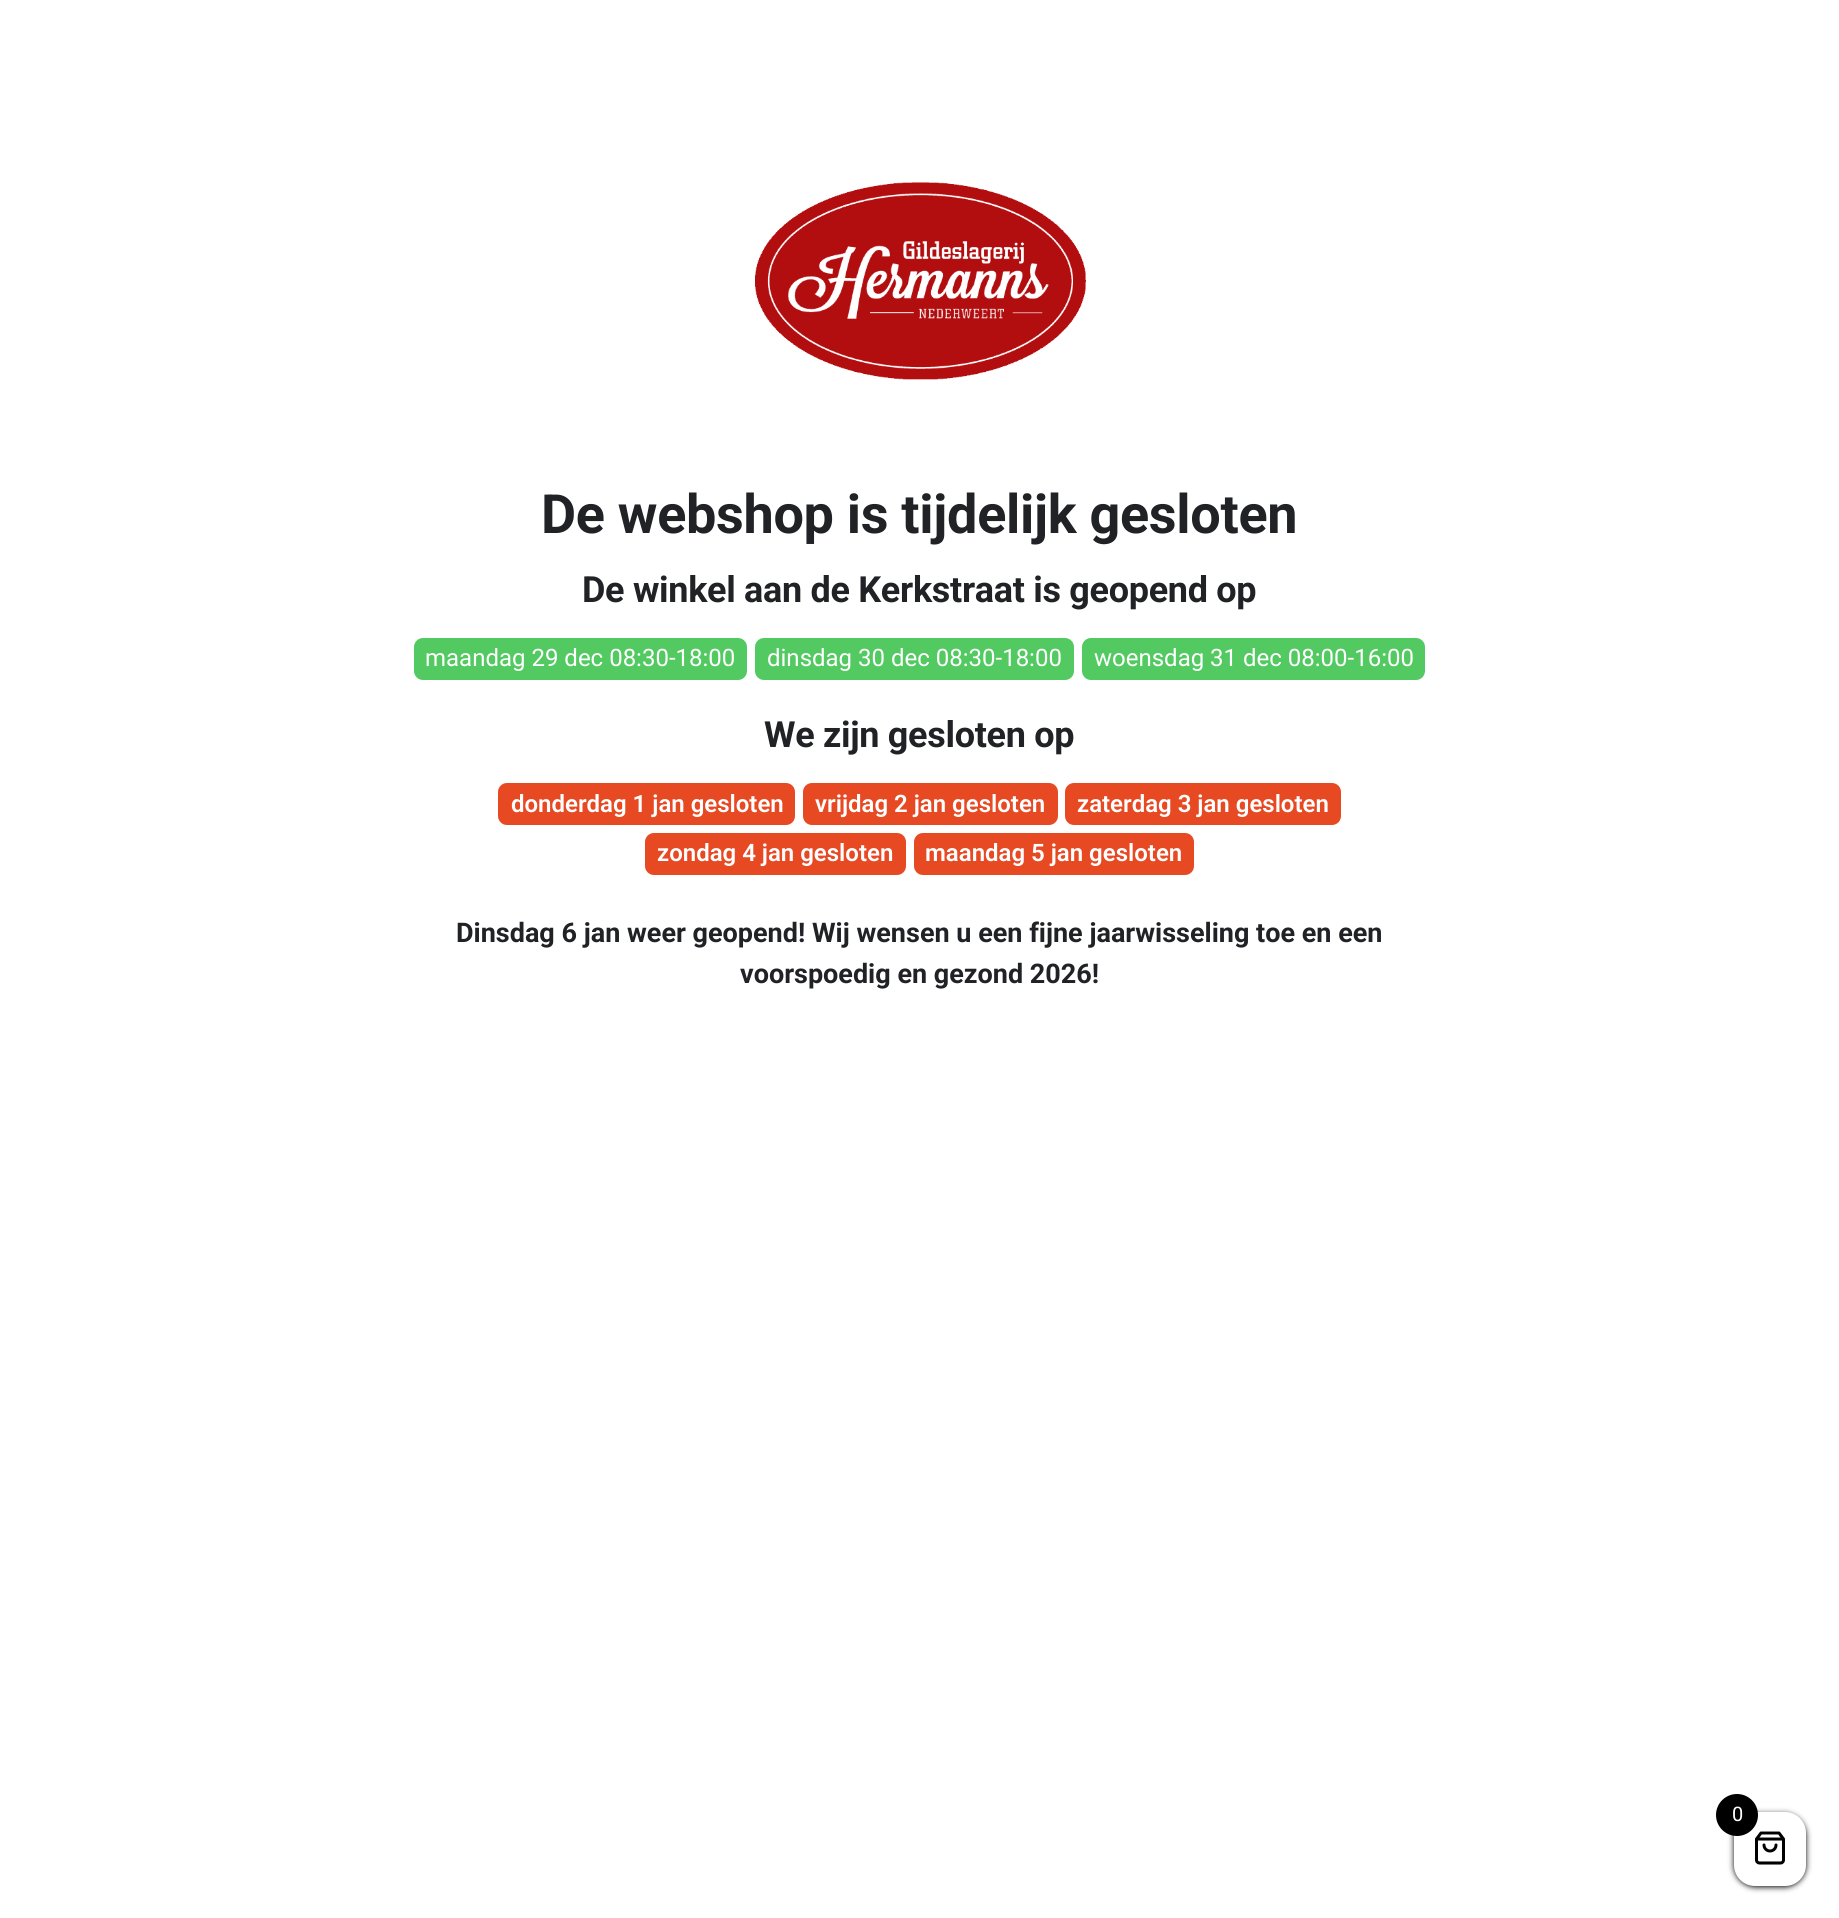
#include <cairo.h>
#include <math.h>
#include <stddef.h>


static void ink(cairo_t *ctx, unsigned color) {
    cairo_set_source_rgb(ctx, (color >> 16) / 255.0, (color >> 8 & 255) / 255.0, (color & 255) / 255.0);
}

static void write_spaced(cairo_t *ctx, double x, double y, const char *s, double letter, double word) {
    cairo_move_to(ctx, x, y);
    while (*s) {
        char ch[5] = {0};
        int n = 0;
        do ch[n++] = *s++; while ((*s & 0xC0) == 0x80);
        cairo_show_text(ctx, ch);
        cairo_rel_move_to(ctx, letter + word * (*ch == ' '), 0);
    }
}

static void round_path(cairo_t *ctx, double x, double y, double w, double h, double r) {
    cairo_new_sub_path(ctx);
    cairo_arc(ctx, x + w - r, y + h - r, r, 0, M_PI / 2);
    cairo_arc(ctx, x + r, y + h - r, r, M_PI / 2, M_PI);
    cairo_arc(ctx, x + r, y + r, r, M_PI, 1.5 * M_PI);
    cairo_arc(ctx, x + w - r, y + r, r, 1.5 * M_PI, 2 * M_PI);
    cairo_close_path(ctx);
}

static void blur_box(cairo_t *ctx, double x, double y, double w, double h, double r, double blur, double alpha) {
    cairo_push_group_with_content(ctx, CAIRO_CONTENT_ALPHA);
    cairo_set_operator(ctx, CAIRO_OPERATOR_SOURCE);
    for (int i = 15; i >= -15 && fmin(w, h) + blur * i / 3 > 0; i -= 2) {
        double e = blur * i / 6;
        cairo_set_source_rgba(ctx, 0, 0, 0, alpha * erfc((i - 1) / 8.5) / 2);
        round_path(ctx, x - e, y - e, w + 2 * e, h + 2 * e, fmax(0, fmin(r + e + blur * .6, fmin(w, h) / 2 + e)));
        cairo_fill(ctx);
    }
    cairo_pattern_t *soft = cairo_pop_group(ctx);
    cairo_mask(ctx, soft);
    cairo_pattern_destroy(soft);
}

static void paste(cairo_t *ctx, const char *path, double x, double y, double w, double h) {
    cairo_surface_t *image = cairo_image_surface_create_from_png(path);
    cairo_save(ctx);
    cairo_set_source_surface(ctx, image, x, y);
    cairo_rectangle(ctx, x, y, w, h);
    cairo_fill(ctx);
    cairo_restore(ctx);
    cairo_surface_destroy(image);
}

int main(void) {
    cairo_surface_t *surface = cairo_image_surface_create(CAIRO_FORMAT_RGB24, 1839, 1918);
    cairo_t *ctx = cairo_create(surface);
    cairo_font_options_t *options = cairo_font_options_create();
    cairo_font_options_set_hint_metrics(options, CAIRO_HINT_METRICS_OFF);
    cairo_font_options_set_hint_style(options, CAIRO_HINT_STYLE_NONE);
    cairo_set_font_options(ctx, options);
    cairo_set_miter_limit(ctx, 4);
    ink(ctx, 0xFFFFFF);
    cairo_paint(ctx);
    paste(ctx, "media/1.png", 755, 182, 331, 198);
    cairo_select_font_face(ctx, "Roboto", CAIRO_FONT_SLANT_NORMAL, CAIRO_FONT_WEIGHT_BOLD);
    cairo_set_font_size(ctx, 54);
    ink(ctx, 0x202226);
    write_spaced(ctx, 541, 533, "De webshop is tijdelijk gesloten", -0.3, 0);
    cairo_set_font_size(ctx, 36);
    write_spaced(ctx, 582, 602, "De winkel aan de Kerkstraat is geopend op", -0.3, 0);
    ink(ctx, 0x52CA61);
    round_path(ctx, 414, 638, 333, 42, 9);
    cairo_fill(ctx);
    cairo_select_font_face(ctx, "Roboto", CAIRO_FONT_SLANT_NORMAL, CAIRO_FONT_WEIGHT_NORMAL);
    cairo_set_font_size(ctx, 24);
    ink(ctx, 0xFFFFFF);
    cairo_move_to(ctx, 425, 666);
    cairo_show_text(ctx, "maandag 29 dec 08:30-18:00");
    ink(ctx, 0x52CA61);
    round_path(ctx, 755, 638, 319, 42, 9);
    cairo_fill(ctx);
    ink(ctx, 0xFFFFFF);
    cairo_move_to(ctx, 767, 666);
    cairo_show_text(ctx, "dinsdag 30 dec 08:30-18:00");
    ink(ctx, 0x52CA61);
    round_path(ctx, 1082, 638, 343, 42, 9);
    cairo_fill(ctx);
    ink(ctx, 0xFFFFFF);
    cairo_move_to(ctx, 1094, 666);
    cairo_show_text(ctx, "woensdag 31 dec 08:00-16:00");
    cairo_select_font_face(ctx, "Roboto", CAIRO_FONT_SLANT_NORMAL, CAIRO_FONT_WEIGHT_BOLD);
    cairo_set_font_size(ctx, 36);
    ink(ctx, 0x202226);
    write_spaced(ctx, 764, 747, "We zijn gesloten op", -0.3, 0);
    ink(ctx, 0xE74923);
    round_path(ctx, 498, 783, 297, 42, 9);
    cairo_fill(ctx);
    cairo_select_font_face(ctx, "Roboto SemiBold", CAIRO_FONT_SLANT_NORMAL, CAIRO_FONT_WEIGHT_NORMAL);
    cairo_set_font_size(ctx, 24);
    ink(ctx, 0xFFFFFF);
    cairo_move_to(ctx, 511, 812);
    cairo_show_text(ctx, "donderdag 1 jan gesloten");
    ink(ctx, 0xE74923);
    round_path(ctx, 803, 783, 255, 42, 9);
    cairo_fill(ctx);
    ink(ctx, 0xFFFFFF);
    cairo_move_to(ctx, 815, 812);
    cairo_show_text(ctx, "vrijdag 2 jan gesloten");
    ink(ctx, 0xE74923);
    round_path(ctx, 1065, 783, 276, 42, 9);
    cairo_fill(ctx);
    ink(ctx, 0xFFFFFF);
    cairo_move_to(ctx, 1077, 812);
    cairo_show_text(ctx, "zaterdag 3 jan gesloten");
    ink(ctx, 0xE74923);
    round_path(ctx, 645, 833, 261, 42, 9);
    cairo_fill(ctx);
    ink(ctx, 0xFFFFFF);
    cairo_move_to(ctx, 657, 861);
    cairo_show_text(ctx, "zondag 4 jan gesloten");
    ink(ctx, 0xE74923);
    round_path(ctx, 914, 833, 280, 42, 9);
    cairo_fill(ctx);
    ink(ctx, 0xFFFFFF);
    cairo_move_to(ctx, 925, 861);
    cairo_show_text(ctx, "maandag 5 jan gesloten");
    cairo_select_font_face(ctx, "Roboto", CAIRO_FONT_SLANT_NORMAL, CAIRO_FONT_WEIGHT_BOLD);
    cairo_set_font_size(ctx, 27);
    ink(ctx, 0x202226);
    cairo_move_to(ctx, 456, 942);
    cairo_show_text(ctx, "Dinsdag 6 jan weer geopend! Wij wensen u een fijne jaarwisseling toe en een");
    cairo_move_to(ctx, 740, 983);
    cairo_show_text(ctx, "voorspoedig en gezond 2026!");
    ink(ctx, 0x000000);
    blur_box(ctx, 1734, 1814, 72, 73, 21, 3, 1);
    ink(ctx, 0xFFFFFF);
    round_path(ctx, 1734, 1812, 72, 74, 21);
    cairo_fill(ctx);
    ink(ctx, 0x000000);
    cairo_arc(ctx, 1737, 1815, 21, 0, 2 * M_PI);
    cairo_fill(ctx);
    cairo_select_font_face(ctx, "Roboto", CAIRO_FONT_SLANT_NORMAL, CAIRO_FONT_WEIGHT_NORMAL);
    cairo_set_font_size(ctx, 20);
    ink(ctx, 0xFFFFFF);
    cairo_move_to(ctx, 1732, 1821);
    cairo_show_text(ctx, "0");
    paste(ctx, "media/2.png", 1755, 1831, 30, 34);
    cairo_surface_write_to_png(surface, "image.png");
    cairo_font_options_destroy(options);
    cairo_destroy(ctx);
    cairo_surface_destroy(surface);
    return 0;
}
